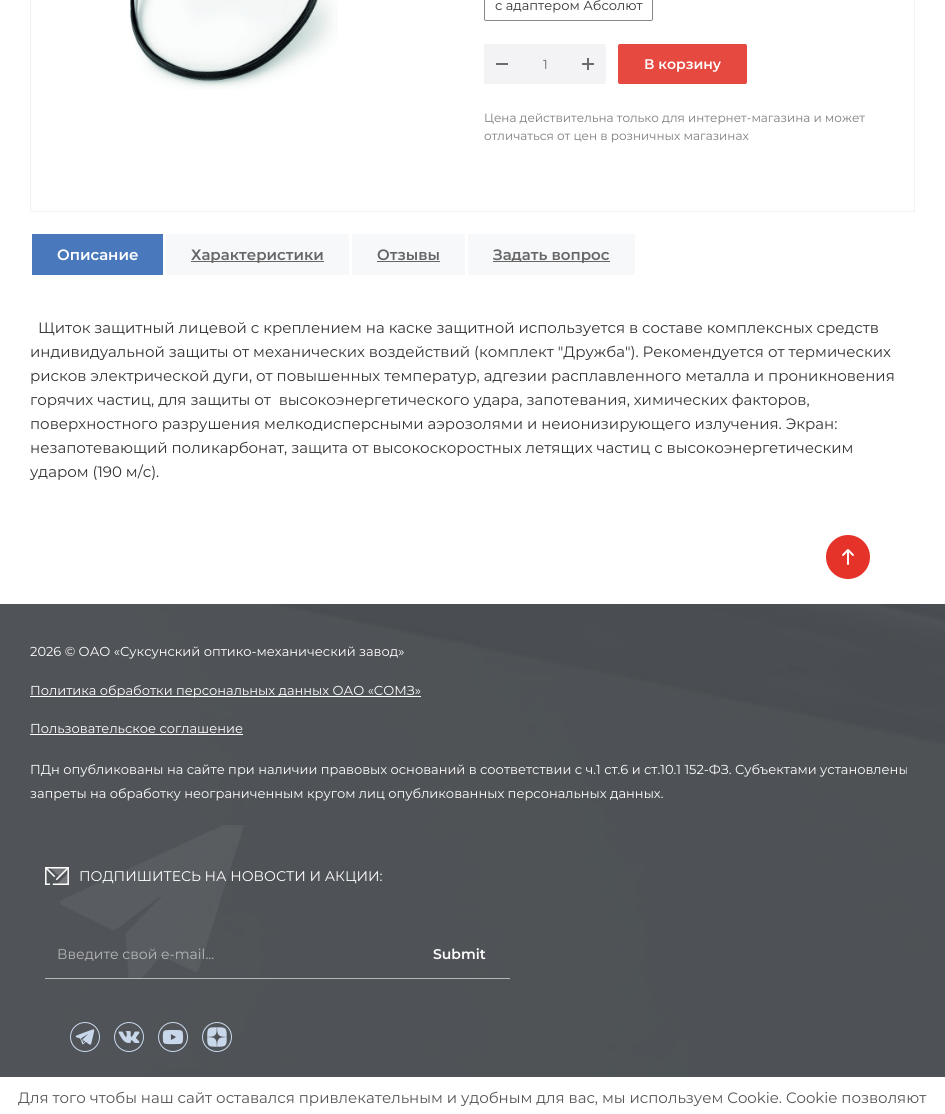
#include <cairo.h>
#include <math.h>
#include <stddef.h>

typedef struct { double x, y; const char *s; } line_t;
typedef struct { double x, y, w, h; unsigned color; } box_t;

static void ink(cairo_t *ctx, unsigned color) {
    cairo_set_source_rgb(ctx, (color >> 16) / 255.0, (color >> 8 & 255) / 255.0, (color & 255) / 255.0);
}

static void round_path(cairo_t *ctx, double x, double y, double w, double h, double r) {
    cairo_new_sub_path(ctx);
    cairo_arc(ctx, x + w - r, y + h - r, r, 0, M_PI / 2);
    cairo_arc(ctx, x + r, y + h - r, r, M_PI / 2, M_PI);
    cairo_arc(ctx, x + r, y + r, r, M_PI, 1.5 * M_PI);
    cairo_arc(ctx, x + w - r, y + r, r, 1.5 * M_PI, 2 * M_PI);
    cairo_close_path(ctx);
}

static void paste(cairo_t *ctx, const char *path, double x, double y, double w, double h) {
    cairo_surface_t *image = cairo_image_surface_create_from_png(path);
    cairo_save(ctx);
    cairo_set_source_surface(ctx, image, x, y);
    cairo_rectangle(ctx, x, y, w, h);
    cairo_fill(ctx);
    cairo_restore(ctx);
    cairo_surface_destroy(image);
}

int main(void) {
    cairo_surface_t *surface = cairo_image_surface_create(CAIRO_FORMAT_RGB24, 945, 1114);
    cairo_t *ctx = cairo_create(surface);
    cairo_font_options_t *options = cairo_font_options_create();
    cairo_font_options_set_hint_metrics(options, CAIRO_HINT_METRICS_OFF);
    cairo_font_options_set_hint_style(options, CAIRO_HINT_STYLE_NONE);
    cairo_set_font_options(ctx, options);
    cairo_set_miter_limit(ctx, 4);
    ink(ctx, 0xFFFFFF);
    cairo_paint(ctx);
    cairo_rectangle(ctx, 30.5, -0.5, 884, 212);
    ink(ctx, 0xF2F2F2);
    cairo_set_line_width(ctx, 1);
    cairo_stroke(ctx);
    paste(ctx, "media/1.png", 129, 0, 209, 90);
    round_path(ctx, 484.5, -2.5, 168, 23, 1.5);
    ink(ctx, 0x888888);
    cairo_stroke(ctx);
    cairo_select_font_face(ctx, "Montserrat", CAIRO_FONT_SLANT_NORMAL, CAIRO_FONT_WEIGHT_NORMAL);
    cairo_set_font_size(ctx, 13);
    ink(ctx, 0x333333);
    cairo_move_to(ctx, 495, 10);
    cairo_show_text(ctx, "с адаптером Абсолют");
    ink(ctx, 0xF3F3F5);
    round_path(ctx, 484, 44, 122, 40, 2);
    cairo_fill(ctx);
    ink(ctx, 0x6C6C6D);
    cairo_rectangle(ctx, 496, 63, 12, 2);
    cairo_fill(ctx);
    ink(ctx, 0x666666);
    cairo_move_to(ctx, 543, 69);
    cairo_show_text(ctx, "1");
    paste(ctx, "media/2.png", 582, 58, 12, 12);
    ink(ctx, 0xE54940);
    round_path(ctx, 618.5, 44.5, 128, 39, 1.5);
    cairo_fill_preserve(ctx);
    cairo_stroke(ctx);
    cairo_select_font_face(ctx, "Montserrat SemiBold", CAIRO_FONT_SLANT_NORMAL, CAIRO_FONT_WEIGHT_NORMAL);
    cairo_set_font_size(ctx, 14);
    ink(ctx, 0xFFFFFF);
    cairo_move_to(ctx, 644, 69);
    cairo_show_text(ctx, "В корзину");
    cairo_select_font_face(ctx, "Montserrat", CAIRO_FONT_SLANT_NORMAL, CAIRO_FONT_WEIGHT_NORMAL);
    cairo_set_font_size(ctx, 12);
    ink(ctx, 0x7D7D7D);
    cairo_move_to(ctx, 484, 122);
    cairo_show_text(ctx, "Цена действительна только для интернет-магазина и может");
    cairo_move_to(ctx, 484, 140);
    cairo_show_text(ctx, "отличаться от цен в розничных магазинах");
    ink(ctx, 0x4978BC);
    cairo_rectangle(ctx, 32, 234, 131, 41);
    cairo_fill(ctx);
    cairo_select_font_face(ctx, "Montserrat SemiBold", CAIRO_FONT_SLANT_NORMAL, CAIRO_FONT_WEIGHT_NORMAL);
    cairo_set_font_size(ctx, 15);
    ink(ctx, 0xFFFFFF);
    cairo_move_to(ctx, 57, 260);
    cairo_show_text(ctx, "Описание");
    ink(ctx, 0xF7F8FA);
    cairo_rectangle(ctx, 166, 234, 183, 41);
    cairo_fill(ctx);
    ink(ctx, 0x666666);
    cairo_rectangle(ctx, 191, 261, 133, 1);
    cairo_fill(ctx);
    cairo_move_to(ctx, 191, 260);
    cairo_show_text(ctx, "Характеристики");
    ink(ctx, 0xF7F8FA);
    cairo_rectangle(ctx, 352, 234, 113, 41);
    cairo_fill(ctx);
    ink(ctx, 0x666666);
    cairo_move_to(ctx, 377, 260);
    cairo_show_text(ctx, "Отзывы");
    {
        static const box_t items[] = {
            {377, 261, 63, 1, 0x666666},
            {468, 234, 167, 41, 0xF7F8FA},
            {493, 261, 117, 1, 0x666666},
        };
        for (size_t i = 0; i < sizeof items / sizeof *items; i++) {
            ink(ctx, items[i].color);
            cairo_rectangle(ctx, items[i].x, items[i].y, items[i].w, items[i].h);
            cairo_fill(ctx);
        }
    }
    cairo_move_to(ctx, 493, 260);
    cairo_show_text(ctx, "Задать вопрос");
    cairo_select_font_face(ctx, "Montserrat", CAIRO_FONT_SLANT_NORMAL, CAIRO_FONT_WEIGHT_NORMAL);
    ink(ctx, 0x333333);
    {
        static const line_t items[] = {
            {38, 333, "Щиток защитный лицевой с креплением на каске защитной используется в составе комплексных средств"},
            {30, 357, "индивидуальной защиты от механических воздействий (комплект \"Дружба\"). Рекомендуется от термических"},
            {30, 381, "рисков электрической дуги, от повышенных температур, адгезии расплавленного металла и проникновения"},
            {30, 405, "горячих частиц, для защиты от  высокоэнергетического удара, запотевания, химических факторов,"},
            {30, 429, "поверхностного разрушения мелкодисперсными аэрозолями и неионизирующего излучения. Экран:"},
            {30, 453, "незапотевающий поликарбонат, защита от высокоскоростных летящих частиц с высокоэнергетическим"},
            {30, 477, "ударом (190 м/с)."},
        };
        for (size_t i = 0; i < sizeof items / sizeof *items; i++) {
            cairo_move_to(ctx, items[i].x, items[i].y);
            cairo_show_text(ctx, items[i].s);
        }
    }
    ink(ctx, 0xE5332A);
    cairo_new_path(ctx);
    cairo_arc(ctx, 848, 557, 22, 0, 2 * M_PI);
    cairo_fill(ctx);
    paste(ctx, "media/3.png", 842, 549, 12, 16);
    paste(ctx, "media/4.png", 0, 604, 945, 473);
    cairo_set_font_size(ctx, 13);
    ink(ctx, 0xFFFFFF);
    cairo_move_to(ctx, 30, 656);
    cairo_show_text(ctx, "2026 © ОАО «Суксунский оптико-механический завод»");
    cairo_rectangle(ctx, 30, 696, 391, 1);
    cairo_fill(ctx);
    cairo_move_to(ctx, 30, 695);
    cairo_show_text(ctx, "Политика обработки персональных данных ОАО «СОМЗ»");
    cairo_move_to(ctx, 30, 733);
    cairo_show_text(ctx, "Пользовательское соглашение");
    cairo_rectangle(ctx, 30, 734, 213, 1);
    cairo_fill(ctx);
    cairo_move_to(ctx, 30, 774);
    cairo_show_text(ctx, "ПДн опубликованы на сайте при наличии правовых оснований в соответствии с ч.1 ст.6 и ст.10.1 152-ФЗ. Субъектами установлены");
    cairo_move_to(ctx, 30, 798);
    cairo_show_text(ctx, "запреты на обработку неограниченным кругом лиц опубликованных персональных данных.");
    paste(ctx, "media/5.png", 60, 825, 184, 153);
    paste(ctx, "media/6.png", 45, 867, 24, 18);
    cairo_set_font_size(ctx, 14);
    cairo_move_to(ctx, 79, 881);
    cairo_show_text(ctx, "ПОДПИШИТЕСЬ НА НОВОСТИ И АКЦИИ:");
    ink(ctx, 0xB5B6B7);
    cairo_rectangle(ctx, 45, 978, 465, 1);
    cairo_fill(ctx);
    cairo_move_to(ctx, 57, 959);
    cairo_show_text(ctx, "Введите свой e-mail...");
    cairo_select_font_face(ctx, "Montserrat SemiBold", CAIRO_FONT_SLANT_NORMAL, CAIRO_FONT_WEIGHT_NORMAL);
    ink(ctx, 0xFFFFFF);
    cairo_move_to(ctx, 433, 959);
    cairo_show_text(ctx, "Submit");
    paste(ctx, "media/7.png", 70, 1022, 30, 30);
    paste(ctx, "media/8.png", 114, 1022, 30, 30);
    paste(ctx, "media/9.png", 158, 1022, 30, 30);
    paste(ctx, "media/10.png", 202, 1022, 30, 30);
    cairo_select_font_face(ctx, "Montserrat", CAIRO_FONT_SLANT_NORMAL, CAIRO_FONT_WEIGHT_NORMAL);
    cairo_set_font_size(ctx, 15);
    ink(ctx, 0x555555);
    cairo_move_to(ctx, 18, 1103);
    cairo_show_text(ctx, "Для того чтобы наш сайт оставался привлекательным и удобным для вас, мы используем Cookie. Cookie позволяют");
    cairo_surface_write_to_png(surface, "image.png");
    cairo_font_options_destroy(options);
    cairo_destroy(ctx);
    cairo_surface_destroy(surface);
    return 0;
}
